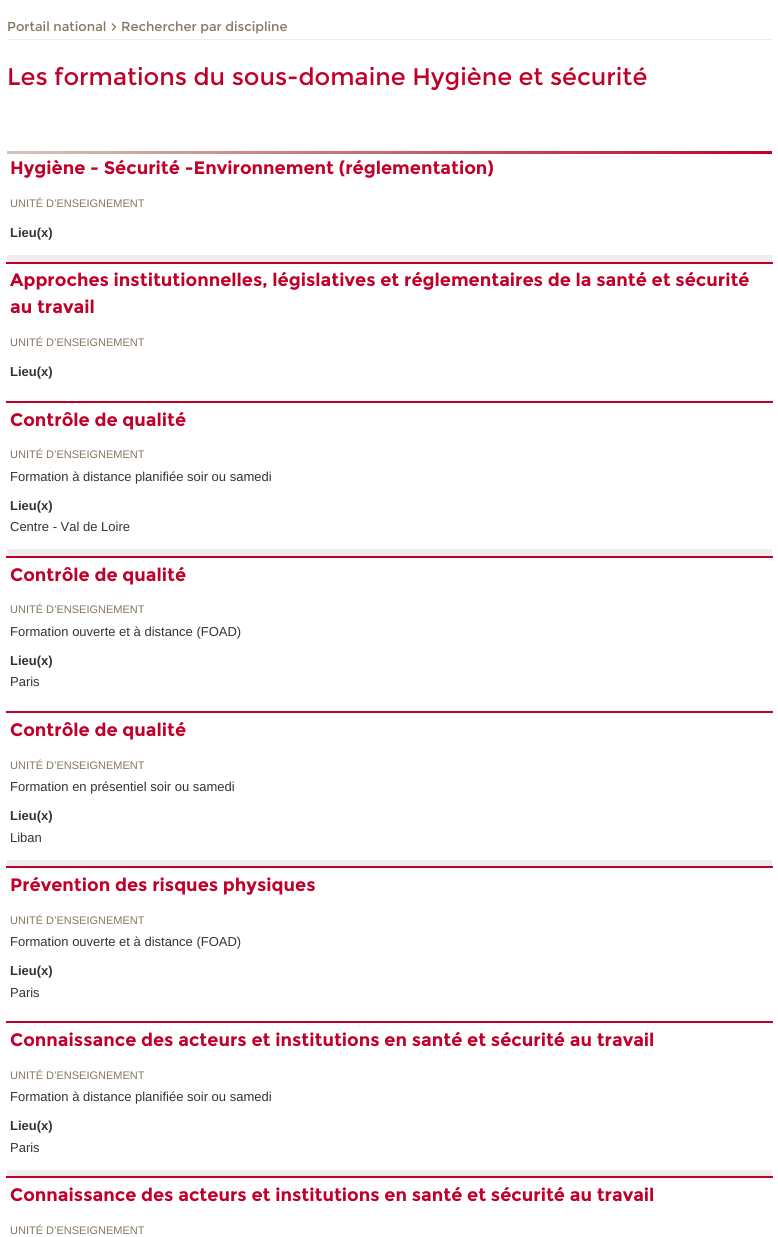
#include <cairo.h>
#include <math.h>
#include <stddef.h>


static void ink(cairo_t *ctx, unsigned color) {
    cairo_set_source_rgb(ctx, (color >> 16) / 255.0, (color >> 8 & 255) / 255.0, (color & 255) / 255.0);
}

static void paste(cairo_t *ctx, const char *path, double x, double y, double w, double h) {
    cairo_surface_t *image = cairo_image_surface_create_from_png(path);
    cairo_save(ctx);
    cairo_set_source_surface(ctx, image, x, y);
    cairo_rectangle(ctx, x, y, w, h);
    cairo_fill(ctx);
    cairo_restore(ctx);
    cairo_surface_destroy(image);
}

int main(void) {
    cairo_surface_t *surface = cairo_image_surface_create(CAIRO_FORMAT_RGB24, 778, 1237);
    cairo_t *ctx = cairo_create(surface);
    cairo_font_options_t *options = cairo_font_options_create();
    cairo_font_options_set_hint_metrics(options, CAIRO_HINT_METRICS_OFF);
    cairo_font_options_set_hint_style(options, CAIRO_HINT_STYLE_NONE);
    cairo_set_font_options(ctx, options);
    cairo_set_miter_limit(ctx, 4);
    cairo_pattern_t *gradient;
    ink(ctx, 0xFFFFFF);
    cairo_paint(ctx);
    ink(ctx, 0xEEEEEE);
    cairo_rectangle(ctx, 7, 39, 765, 1);
    cairo_fill(ctx);
    cairo_select_font_face(ctx, "Montserrat", CAIRO_FONT_SLANT_NORMAL, CAIRO_FONT_WEIGHT_NORMAL);
    cairo_set_font_size(ctx, 13);
    ink(ctx, 0x857761);
    cairo_move_to(ctx, 7, 31);
    cairo_show_text(ctx, "Portail national");
    paste(ctx, "media/1.png", 111, 23, 6, 8);
    cairo_move_to(ctx, 121, 31);
    cairo_show_text(ctx, "Rechercher par discipline");
    cairo_set_font_size(ctx, 24);
    ink(ctx, 0xC1002A);
    cairo_move_to(ctx, 7, 85);
    cairo_show_text(ctx, "Les formations du sous-domaine Hygiène et sécurité");
    gradient = cairo_pattern_create_linear(7, 153, 772, 152);
    cairo_pattern_add_color_stop_rgba(gradient, 0, 0.812, 0.784, 0.753, 1);
    cairo_pattern_add_color_stop_rgba(gradient, 1, 0.757, 0, 0.165, 1);
    cairo_set_source(ctx, gradient);
    cairo_pattern_destroy(gradient);
    cairo_rectangle(ctx, 7, 151, 765, 3);
    cairo_fill(ctx);
    ink(ctx, 0xEEEEEE);
    cairo_rectangle(ctx, 7, 255, 765, 7);
    cairo_fill(ctx);
    ink(ctx, 0xC1002A);
    cairo_rectangle(ctx, 6, 262, 767, 2);
    cairo_fill(ctx);
    cairo_select_font_face(ctx, "Montserrat", CAIRO_FONT_SLANT_NORMAL, CAIRO_FONT_WEIGHT_BOLD);
    cairo_set_font_size(ctx, 18);
    cairo_move_to(ctx, 10, 174);
    cairo_show_text(ctx, "Hygiène - Sécurité -Environnement (réglementation)");
    cairo_select_font_face(ctx, "Liberation Sans", CAIRO_FONT_SLANT_NORMAL, CAIRO_FONT_WEIGHT_NORMAL);
    cairo_set_font_size(ctx, 11);
    ink(ctx, 0x857761);
    cairo_move_to(ctx, 10, 207);
    cairo_show_text(ctx, "UNITÉ D’ENSEIGNEMENT");
    cairo_select_font_face(ctx, "Liberation Sans", CAIRO_FONT_SLANT_NORMAL, CAIRO_FONT_WEIGHT_BOLD);
    cairo_set_font_size(ctx, 13);
    ink(ctx, 0x333333);
    cairo_move_to(ctx, 10, 237);
    cairo_show_text(ctx, "Lieu(x)");
    ink(ctx, 0xC1002A);
    cairo_rectangle(ctx, 6, 401, 767, 2);
    cairo_fill(ctx);
    cairo_select_font_face(ctx, "Montserrat", CAIRO_FONT_SLANT_NORMAL, CAIRO_FONT_WEIGHT_BOLD);
    cairo_set_font_size(ctx, 18);
    cairo_move_to(ctx, 10, 286);
    cairo_show_text(ctx, "Approches institutionnelles, législatives et réglementaires de la santé et sécurité");
    cairo_move_to(ctx, 10, 313);
    cairo_show_text(ctx, "au travail");
    cairo_select_font_face(ctx, "Liberation Sans", CAIRO_FONT_SLANT_NORMAL, CAIRO_FONT_WEIGHT_NORMAL);
    cairo_set_font_size(ctx, 11);
    ink(ctx, 0x857761);
    cairo_move_to(ctx, 10, 346);
    cairo_show_text(ctx, "UNITÉ D’ENSEIGNEMENT");
    cairo_select_font_face(ctx, "Liberation Sans", CAIRO_FONT_SLANT_NORMAL, CAIRO_FONT_WEIGHT_BOLD);
    cairo_set_font_size(ctx, 13);
    ink(ctx, 0x333333);
    cairo_move_to(ctx, 10, 376);
    cairo_show_text(ctx, "Lieu(x)");
    ink(ctx, 0xEEEEEE);
    cairo_rectangle(ctx, 7, 549, 765, 7);
    cairo_fill(ctx);
    ink(ctx, 0xC1002A);
    cairo_rectangle(ctx, 6, 556, 767, 2);
    cairo_fill(ctx);
    cairo_select_font_face(ctx, "Montserrat", CAIRO_FONT_SLANT_NORMAL, CAIRO_FONT_WEIGHT_BOLD);
    cairo_set_font_size(ctx, 18);
    cairo_move_to(ctx, 10, 426);
    cairo_show_text(ctx, "Contrôle de qualité");
    cairo_select_font_face(ctx, "Liberation Sans", CAIRO_FONT_SLANT_NORMAL, CAIRO_FONT_WEIGHT_NORMAL);
    cairo_set_font_size(ctx, 11);
    ink(ctx, 0x857761);
    cairo_move_to(ctx, 10, 458);
    cairo_show_text(ctx, "UNITÉ D’ENSEIGNEMENT");
    cairo_set_font_size(ctx, 13);
    ink(ctx, 0x333333);
    cairo_move_to(ctx, 10, 481);
    cairo_show_text(ctx, "Formation à distance planifiée soir ou samedi");
    cairo_select_font_face(ctx, "Liberation Sans", CAIRO_FONT_SLANT_NORMAL, CAIRO_FONT_WEIGHT_BOLD);
    cairo_move_to(ctx, 10, 510);
    cairo_show_text(ctx, "Lieu(x)");
    cairo_select_font_face(ctx, "Liberation Sans", CAIRO_FONT_SLANT_NORMAL, CAIRO_FONT_WEIGHT_NORMAL);
    cairo_move_to(ctx, 10, 531);
    cairo_show_text(ctx, "Centre - Val de Loire");
    ink(ctx, 0xC1002A);
    cairo_rectangle(ctx, 6, 711, 767, 2);
    cairo_fill(ctx);
    cairo_select_font_face(ctx, "Montserrat", CAIRO_FONT_SLANT_NORMAL, CAIRO_FONT_WEIGHT_BOLD);
    cairo_set_font_size(ctx, 18);
    cairo_move_to(ctx, 10, 581);
    cairo_show_text(ctx, "Contrôle de qualité");
    cairo_select_font_face(ctx, "Liberation Sans", CAIRO_FONT_SLANT_NORMAL, CAIRO_FONT_WEIGHT_NORMAL);
    cairo_set_font_size(ctx, 11);
    ink(ctx, 0x857761);
    cairo_move_to(ctx, 10, 613);
    cairo_show_text(ctx, "UNITÉ D’ENSEIGNEMENT");
    cairo_set_font_size(ctx, 13);
    ink(ctx, 0x333333);
    cairo_move_to(ctx, 10, 636);
    cairo_show_text(ctx, "Formation ouverte et à distance (FOAD)");
    cairo_select_font_face(ctx, "Liberation Sans", CAIRO_FONT_SLANT_NORMAL, CAIRO_FONT_WEIGHT_BOLD);
    cairo_move_to(ctx, 10, 665);
    cairo_show_text(ctx, "Lieu(x)");
    cairo_select_font_face(ctx, "Liberation Sans", CAIRO_FONT_SLANT_NORMAL, CAIRO_FONT_WEIGHT_NORMAL);
    cairo_move_to(ctx, 10, 686);
    cairo_show_text(ctx, "Paris");
    ink(ctx, 0xEEEEEE);
    cairo_rectangle(ctx, 7, 860, 765, 6);
    cairo_fill(ctx);
    ink(ctx, 0xC1002A);
    cairo_rectangle(ctx, 6, 866, 767, 2);
    cairo_fill(ctx);
    cairo_select_font_face(ctx, "Montserrat", CAIRO_FONT_SLANT_NORMAL, CAIRO_FONT_WEIGHT_BOLD);
    cairo_set_font_size(ctx, 18);
    cairo_move_to(ctx, 10, 736);
    cairo_show_text(ctx, "Contrôle de qualité");
    cairo_select_font_face(ctx, "Liberation Sans", CAIRO_FONT_SLANT_NORMAL, CAIRO_FONT_WEIGHT_NORMAL);
    cairo_set_font_size(ctx, 11);
    ink(ctx, 0x857761);
    cairo_move_to(ctx, 10, 769);
    cairo_show_text(ctx, "UNITÉ D’ENSEIGNEMENT");
    cairo_set_font_size(ctx, 13);
    ink(ctx, 0x333333);
    cairo_move_to(ctx, 10, 791);
    cairo_show_text(ctx, "Formation en présentiel soir ou samedi");
    cairo_select_font_face(ctx, "Liberation Sans", CAIRO_FONT_SLANT_NORMAL, CAIRO_FONT_WEIGHT_BOLD);
    cairo_move_to(ctx, 10, 820);
    cairo_show_text(ctx, "Lieu(x)");
    cairo_select_font_face(ctx, "Liberation Sans", CAIRO_FONT_SLANT_NORMAL, CAIRO_FONT_WEIGHT_NORMAL);
    cairo_move_to(ctx, 10, 842);
    cairo_show_text(ctx, "Liban");
    ink(ctx, 0xC1002A);
    cairo_rectangle(ctx, 6, 1021, 767, 2);
    cairo_fill(ctx);
    cairo_select_font_face(ctx, "Montserrat", CAIRO_FONT_SLANT_NORMAL, CAIRO_FONT_WEIGHT_BOLD);
    cairo_set_font_size(ctx, 18);
    cairo_move_to(ctx, 10, 891);
    cairo_show_text(ctx, "Prévention des risques physiques");
    cairo_select_font_face(ctx, "Liberation Sans", CAIRO_FONT_SLANT_NORMAL, CAIRO_FONT_WEIGHT_NORMAL);
    cairo_set_font_size(ctx, 11);
    ink(ctx, 0x857761);
    cairo_move_to(ctx, 10, 924);
    cairo_show_text(ctx, "UNITÉ D’ENSEIGNEMENT");
    cairo_set_font_size(ctx, 13);
    ink(ctx, 0x333333);
    cairo_move_to(ctx, 10, 946);
    cairo_show_text(ctx, "Formation ouverte et à distance (FOAD)");
    cairo_select_font_face(ctx, "Liberation Sans", CAIRO_FONT_SLANT_NORMAL, CAIRO_FONT_WEIGHT_BOLD);
    cairo_move_to(ctx, 10, 975);
    cairo_show_text(ctx, "Lieu(x)");
    cairo_select_font_face(ctx, "Liberation Sans", CAIRO_FONT_SLANT_NORMAL, CAIRO_FONT_WEIGHT_NORMAL);
    cairo_move_to(ctx, 10, 997);
    cairo_show_text(ctx, "Paris");
    ink(ctx, 0xEEEEEE);
    cairo_rectangle(ctx, 7, 1170, 765, 6);
    cairo_fill(ctx);
    ink(ctx, 0xC1002A);
    cairo_rectangle(ctx, 6, 1176, 767, 2);
    cairo_fill(ctx);
    cairo_select_font_face(ctx, "Montserrat", CAIRO_FONT_SLANT_NORMAL, CAIRO_FONT_WEIGHT_BOLD);
    cairo_set_font_size(ctx, 18);
    cairo_move_to(ctx, 10, 1046);
    cairo_show_text(ctx, "Connaissance des acteurs et institutions en santé et sécurité au travail");
    cairo_select_font_face(ctx, "Liberation Sans", CAIRO_FONT_SLANT_NORMAL, CAIRO_FONT_WEIGHT_NORMAL);
    cairo_set_font_size(ctx, 11);
    ink(ctx, 0x857761);
    cairo_move_to(ctx, 10, 1079);
    cairo_show_text(ctx, "UNITÉ D’ENSEIGNEMENT");
    cairo_set_font_size(ctx, 13);
    ink(ctx, 0x333333);
    cairo_move_to(ctx, 10, 1101);
    cairo_show_text(ctx, "Formation à distance planifiée soir ou samedi");
    cairo_select_font_face(ctx, "Liberation Sans", CAIRO_FONT_SLANT_NORMAL, CAIRO_FONT_WEIGHT_BOLD);
    cairo_move_to(ctx, 10, 1130);
    cairo_show_text(ctx, "Lieu(x)");
    cairo_select_font_face(ctx, "Liberation Sans", CAIRO_FONT_SLANT_NORMAL, CAIRO_FONT_WEIGHT_NORMAL);
    cairo_move_to(ctx, 10, 1152);
    cairo_show_text(ctx, "Paris");
    cairo_select_font_face(ctx, "Montserrat", CAIRO_FONT_SLANT_NORMAL, CAIRO_FONT_WEIGHT_BOLD);
    cairo_set_font_size(ctx, 18);
    ink(ctx, 0xC1002A);
    cairo_move_to(ctx, 10, 1201);
    cairo_show_text(ctx, "Connaissance des acteurs et institutions en santé et sécurité au travail");
    cairo_select_font_face(ctx, "Liberation Sans", CAIRO_FONT_SLANT_NORMAL, CAIRO_FONT_WEIGHT_NORMAL);
    cairo_set_font_size(ctx, 11);
    ink(ctx, 0x857761);
    cairo_move_to(ctx, 10, 1234);
    cairo_show_text(ctx, "UNITÉ D’ENSEIGNEMENT");
    cairo_surface_write_to_png(surface, "image.png");
    cairo_font_options_destroy(options);
    cairo_destroy(ctx);
    cairo_surface_destroy(surface);
    return 0;
}
